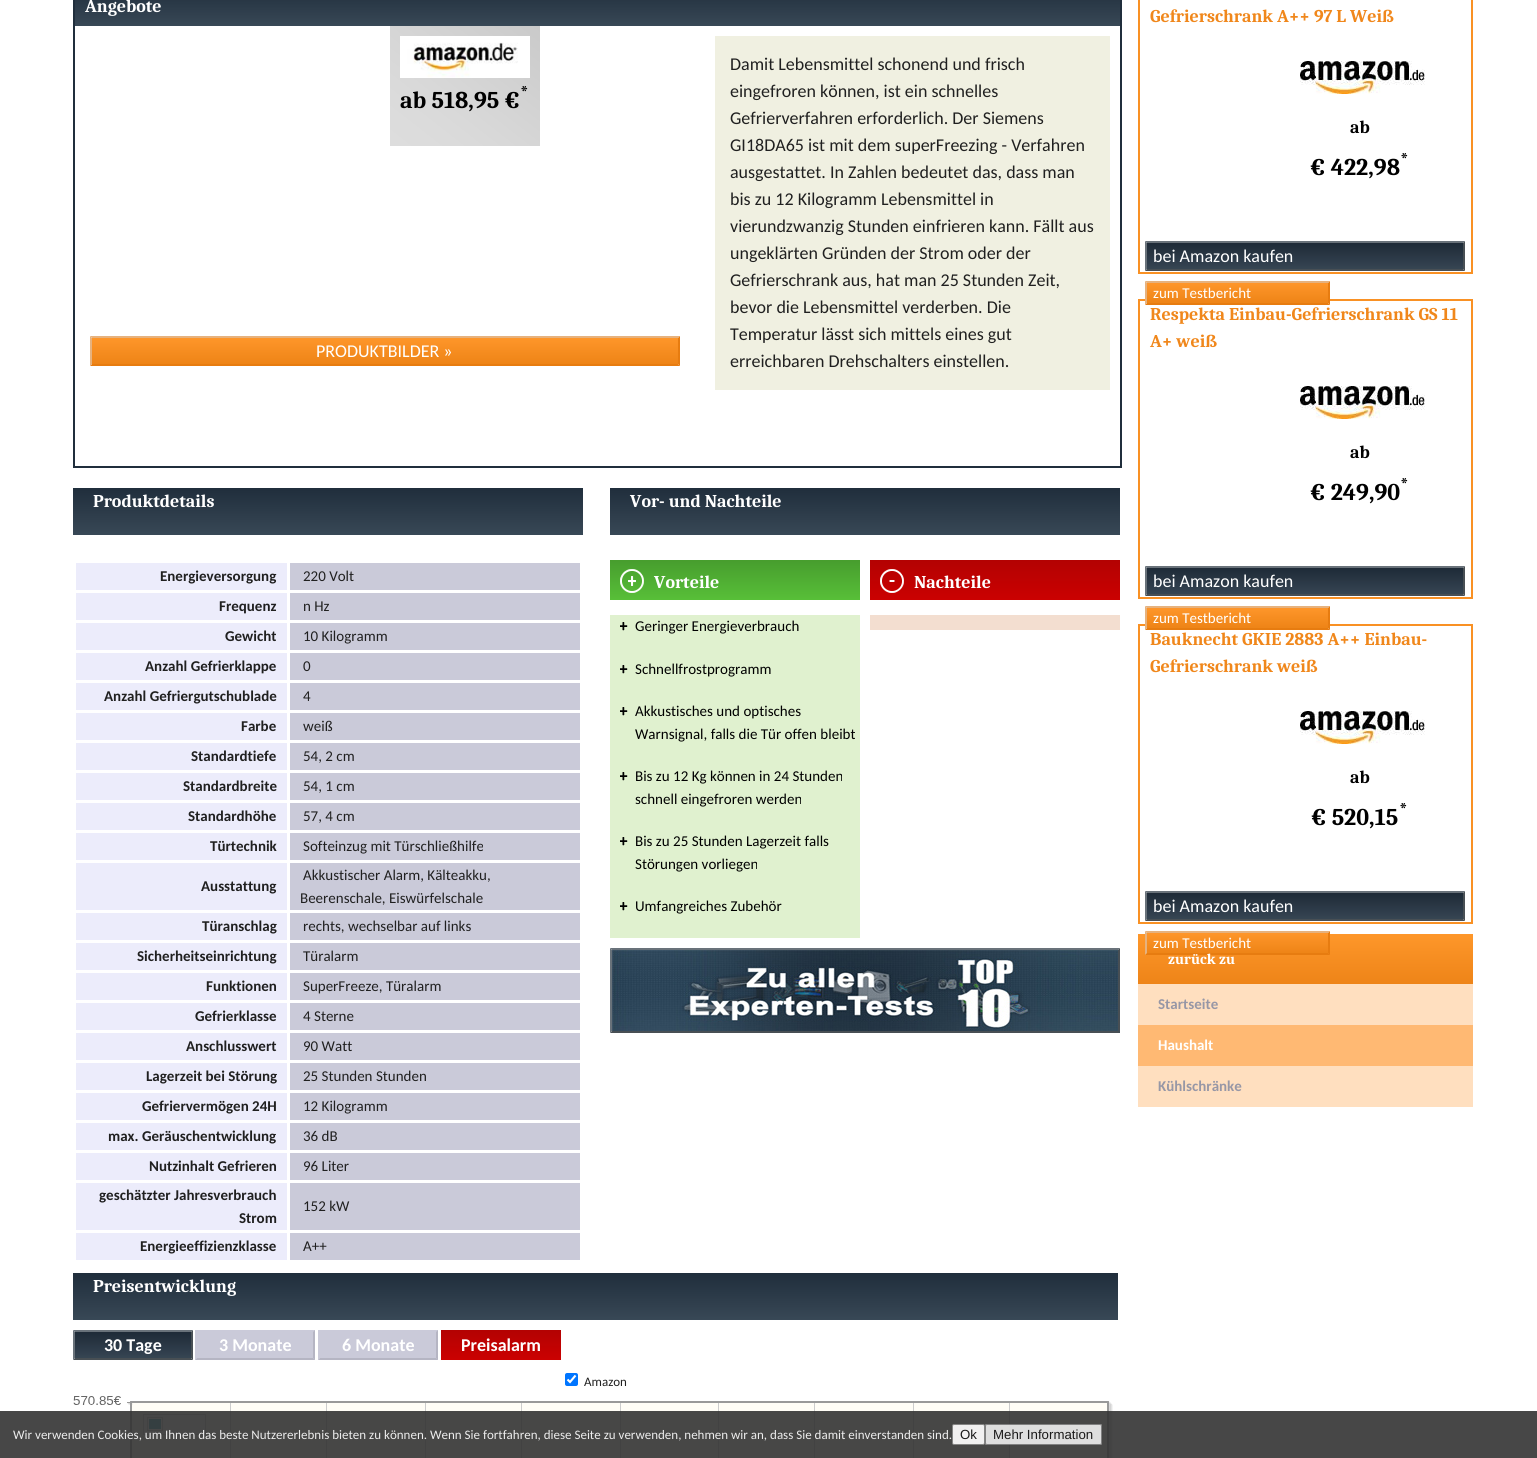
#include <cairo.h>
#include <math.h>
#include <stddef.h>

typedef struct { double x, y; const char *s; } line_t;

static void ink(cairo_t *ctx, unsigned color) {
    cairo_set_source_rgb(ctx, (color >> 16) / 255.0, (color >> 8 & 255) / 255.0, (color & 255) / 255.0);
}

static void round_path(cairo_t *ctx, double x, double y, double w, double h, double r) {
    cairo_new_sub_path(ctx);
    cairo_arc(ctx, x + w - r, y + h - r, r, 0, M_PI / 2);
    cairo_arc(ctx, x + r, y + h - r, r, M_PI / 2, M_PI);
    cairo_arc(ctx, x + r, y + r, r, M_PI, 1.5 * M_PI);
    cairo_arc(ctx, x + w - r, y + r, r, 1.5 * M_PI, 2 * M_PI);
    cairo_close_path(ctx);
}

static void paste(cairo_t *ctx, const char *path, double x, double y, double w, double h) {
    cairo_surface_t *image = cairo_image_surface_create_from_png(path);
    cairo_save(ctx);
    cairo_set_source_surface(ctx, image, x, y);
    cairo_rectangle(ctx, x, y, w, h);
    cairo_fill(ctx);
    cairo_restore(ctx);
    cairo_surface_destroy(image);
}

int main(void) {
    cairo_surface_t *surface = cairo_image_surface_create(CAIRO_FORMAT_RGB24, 1537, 1458);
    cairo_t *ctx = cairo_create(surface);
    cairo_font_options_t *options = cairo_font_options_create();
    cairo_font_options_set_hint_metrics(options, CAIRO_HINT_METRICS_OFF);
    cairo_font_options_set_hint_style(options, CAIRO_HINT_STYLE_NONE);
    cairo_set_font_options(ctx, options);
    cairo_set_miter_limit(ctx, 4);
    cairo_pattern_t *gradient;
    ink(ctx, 0xFFFFFF);
    cairo_paint(ctx);
    cairo_rectangle(ctx, 74, -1, 1047, 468);
    ink(ctx, 0x202E3C);
    cairo_stroke(ctx);
    gradient = cairo_pattern_create_linear(598, -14, 598, 26);
    cairo_pattern_add_color_stop_rgba(gradient, 0, 0.125, 0.18, 0.235, 1);
    cairo_pattern_add_color_stop_rgba(gradient, 1, 0.22, 0.282, 0.337, 1);
    cairo_set_source(ctx, gradient);
    cairo_pattern_destroy(gradient);
    cairo_rectangle(ctx, 75, 0, 1045, 26);
    cairo_fill(ctx);
    cairo_select_font_face(ctx, "Caladea", CAIRO_FONT_SLANT_NORMAL, CAIRO_FONT_WEIGHT_BOLD);
    cairo_set_font_size(ctx, 18);
    ink(ctx, 0xFFFFFF);
    cairo_move_to(ctx, 85, 12);
    cairo_show_text(ctx, "Angebote");
    paste(ctx, "media/1.png", 390, 26, 150, 120);
    paste(ctx, "media/2.png", 400, 36, 130, 42);
    cairo_set_font_size(ctx, 20);
    ink(ctx, 0x000000);
    cairo_move_to(ctx, 520, 99);
    cairo_show_text(ctx, "*");
    cairo_set_font_size(ctx, 24);
    cairo_move_to(ctx, 400, 108);
    cairo_show_text(ctx, "ab 518,95 €");
    ink(ctx, 0xF0F0E1);
    cairo_rectangle(ctx, 715, 36, 395, 354);
    cairo_fill(ctx);
    cairo_select_font_face(ctx, "Carlito", CAIRO_FONT_SLANT_NORMAL, CAIRO_FONT_WEIGHT_NORMAL);
    cairo_set_font_size(ctx, 18);
    ink(ctx, 0x202020);
    {
        static const line_t items[] = {
            {730, 70, "Damit Lebensmittel schonend und frisch"},
            {730, 97, "eingefroren können, ist ein schnelles"},
            {730, 124, "Gefrierverfahren erforderlich. Der Siemens"},
            {730, 151, "GI18DA65 ist mit dem superFreezing - Verfahren"},
            {730, 178, "ausgestattet. In Zahlen bedeutet das, dass man"},
            {730, 205, "bis zu 12 Kilogramm Lebensmittel in"},
            {730, 232, "vierundzwanzig Stunden einfrieren kann. Fällt aus"},
            {730, 259, "ungeklärten Gründen der Strom oder der"},
            {730, 286, "Gefrierschrank aus, hat man 25 Stunden Zeit,"},
            {730, 313, "bevor die Lebensmittel verderben. Die"},
            {730, 340, "Temperatur lässt sich mittels eines gut"},
            {730, 367, "erreichbaren Drehschalters einstellen."},
        };
        for (size_t i = 0; i < sizeof items / sizeof *items; i++) {
            cairo_move_to(ctx, items[i].x, items[i].y);
            cairo_show_text(ctx, items[i].s);
        }
    }
    gradient = cairo_pattern_create_linear(385, 338, 385, 364);
    cairo_pattern_add_color_stop_rgba(gradient, 0, 0.996, 0.588, 0.165, 1);
    cairo_pattern_add_color_stop_rgba(gradient, 1, 0.933, 0.518, 0.09, 1);
    cairo_set_source(ctx, gradient);
    cairo_pattern_destroy(gradient);
    cairo_rectangle(ctx, 92, 338, 586, 26);
    cairo_fill(ctx);
    ink(ctx, 0xE6B27E);
    cairo_new_path(ctx);
    cairo_move_to(ctx, 90, 336);
    cairo_line_to(ctx, 680, 336);
    cairo_line_to(ctx, 678, 338);
    cairo_line_to(ctx, 92, 338);
    cairo_close_path(ctx);
    cairo_fill(ctx);
    ink(ctx, 0xE77C10);
    cairo_new_path(ctx);
    cairo_move_to(ctx, 680, 336);
    cairo_line_to(ctx, 680, 366);
    cairo_line_to(ctx, 678, 364);
    cairo_line_to(ctx, 678, 338);
    cairo_close_path(ctx);
    cairo_fill(ctx);
    cairo_new_path(ctx);
    cairo_move_to(ctx, 680, 366);
    cairo_line_to(ctx, 90, 366);
    cairo_line_to(ctx, 92, 364);
    cairo_line_to(ctx, 678, 364);
    cairo_close_path(ctx);
    cairo_fill(ctx);
    ink(ctx, 0xE6B27E);
    cairo_new_path(ctx);
    cairo_move_to(ctx, 90, 366);
    cairo_line_to(ctx, 90, 336);
    cairo_line_to(ctx, 92, 338);
    cairo_line_to(ctx, 92, 364);
    cairo_close_path(ctx);
    cairo_fill(ctx);
    ink(ctx, 0xFFFFFF);
    cairo_move_to(ctx, 316, 357);
    cairo_show_text(ctx, "PRODUKTBILDER »");
    cairo_rectangle(ctx, 1139, -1, 333, 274);
    ink(ctx, 0xF99124);
    cairo_stroke(ctx);
    cairo_select_font_face(ctx, "Caladea", CAIRO_FONT_SLANT_NORMAL, CAIRO_FONT_WEIGHT_BOLD);
    ink(ctx, 0xF0871B);
    cairo_move_to(ctx, 1150, 22);
    cairo_show_text(ctx, "Gefrierschrank A++ 97 L Weiß");
    paste(ctx, "media/3.png", 1300, 61, 125, 33);
    ink(ctx, 0x000000);
    cairo_move_to(ctx, 1350, 133);
    cairo_show_text(ctx, "ab");
    cairo_set_font_size(ctx, 20);
    cairo_move_to(ctx, 1400, 166);
    cairo_show_text(ctx, "*");
    cairo_set_font_size(ctx, 24);
    cairo_move_to(ctx, 1310, 175);
    cairo_show_text(ctx, "€ 422,98");
    gradient = cairo_pattern_create_linear(1305, 243, 1305, 269);
    cairo_pattern_add_color_stop_rgba(gradient, 0, 0.118, 0.165, 0.216, 1);
    cairo_pattern_add_color_stop_rgba(gradient, 1, 0.212, 0.271, 0.325, 1);
    cairo_set_source(ctx, gradient);
    cairo_pattern_destroy(gradient);
    cairo_rectangle(ctx, 1147, 243, 316, 26);
    cairo_fill(ctx);
    ink(ctx, 0x69727A);
    cairo_new_path(ctx);
    cairo_move_to(ctx, 1145, 241);
    cairo_line_to(ctx, 1465, 241);
    cairo_line_to(ctx, 1463, 243);
    cairo_line_to(ctx, 1147, 243);
    cairo_close_path(ctx);
    cairo_fill(ctx);
    ink(ctx, 0x484F54);
    cairo_new_path(ctx);
    cairo_move_to(ctx, 1465, 241);
    cairo_line_to(ctx, 1465, 271);
    cairo_line_to(ctx, 1463, 269);
    cairo_line_to(ctx, 1463, 243);
    cairo_close_path(ctx);
    cairo_fill(ctx);
    cairo_new_path(ctx);
    cairo_move_to(ctx, 1465, 271);
    cairo_line_to(ctx, 1145, 271);
    cairo_line_to(ctx, 1147, 269);
    cairo_line_to(ctx, 1463, 269);
    cairo_close_path(ctx);
    cairo_fill(ctx);
    ink(ctx, 0x69727A);
    cairo_new_path(ctx);
    cairo_move_to(ctx, 1145, 271);
    cairo_line_to(ctx, 1145, 241);
    cairo_line_to(ctx, 1147, 243);
    cairo_line_to(ctx, 1147, 269);
    cairo_close_path(ctx);
    cairo_fill(ctx);
    cairo_select_font_face(ctx, "Carlito", CAIRO_FONT_SLANT_NORMAL, CAIRO_FONT_WEIGHT_NORMAL);
    cairo_set_font_size(ctx, 18);
    ink(ctx, 0xFFFFFF);
    cairo_move_to(ctx, 1153, 262);
    cairo_show_text(ctx, "bei Amazon kaufen");
    cairo_rectangle(ctx, 1139, 300, 333, 298);
    ink(ctx, 0xF99124);
    cairo_stroke(ctx);
    gradient = cairo_pattern_create_linear(1238, 283, 1238, 303);
    cairo_pattern_add_color_stop_rgba(gradient, 0, 0.996, 0.588, 0.165, 1);
    cairo_pattern_add_color_stop_rgba(gradient, 1, 0.933, 0.518, 0.09, 1);
    cairo_set_source(ctx, gradient);
    cairo_pattern_destroy(gradient);
    cairo_rectangle(ctx, 1147, 283, 181, 20);
    cairo_fill(ctx);
    ink(ctx, 0xE6B27E);
    cairo_new_path(ctx);
    cairo_move_to(ctx, 1145, 281);
    cairo_line_to(ctx, 1330, 281);
    cairo_line_to(ctx, 1328, 283);
    cairo_line_to(ctx, 1147, 283);
    cairo_close_path(ctx);
    cairo_fill(ctx);
    ink(ctx, 0xE77C10);
    cairo_new_path(ctx);
    cairo_move_to(ctx, 1330, 281);
    cairo_line_to(ctx, 1330, 305);
    cairo_line_to(ctx, 1328, 303);
    cairo_line_to(ctx, 1328, 283);
    cairo_close_path(ctx);
    cairo_fill(ctx);
    cairo_new_path(ctx);
    cairo_move_to(ctx, 1330, 305);
    cairo_line_to(ctx, 1145, 305);
    cairo_line_to(ctx, 1147, 303);
    cairo_line_to(ctx, 1328, 303);
    cairo_close_path(ctx);
    cairo_fill(ctx);
    ink(ctx, 0xE6B27E);
    cairo_new_path(ctx);
    cairo_move_to(ctx, 1145, 305);
    cairo_line_to(ctx, 1145, 281);
    cairo_line_to(ctx, 1147, 283);
    cairo_line_to(ctx, 1147, 303);
    cairo_close_path(ctx);
    cairo_fill(ctx);
    cairo_set_font_size(ctx, 15);
    ink(ctx, 0xFFFFFF);
    cairo_move_to(ctx, 1153, 298);
    cairo_show_text(ctx, "zum Testbericht");
    cairo_select_font_face(ctx, "Caladea", CAIRO_FONT_SLANT_NORMAL, CAIRO_FONT_WEIGHT_BOLD);
    cairo_set_font_size(ctx, 18);
    ink(ctx, 0xF0871B);
    cairo_move_to(ctx, 1150, 320);
    cairo_show_text(ctx, "Respekta Einbau-Gefrierschrank GS 11");
    cairo_move_to(ctx, 1150, 347);
    cairo_show_text(ctx, "A+ weiß");
    paste(ctx, "media/3.png", 1300, 386, 125, 33);
    ink(ctx, 0x000000);
    cairo_move_to(ctx, 1350, 458);
    cairo_show_text(ctx, "ab");
    cairo_set_font_size(ctx, 20);
    cairo_move_to(ctx, 1400, 491);
    cairo_show_text(ctx, "*");
    cairo_set_font_size(ctx, 24);
    cairo_move_to(ctx, 1310, 500);
    cairo_show_text(ctx, "€ 249,90");
    gradient = cairo_pattern_create_linear(1305, 568, 1305, 594);
    cairo_pattern_add_color_stop_rgba(gradient, 0, 0.118, 0.165, 0.216, 1);
    cairo_pattern_add_color_stop_rgba(gradient, 1, 0.212, 0.271, 0.325, 1);
    cairo_set_source(ctx, gradient);
    cairo_pattern_destroy(gradient);
    cairo_rectangle(ctx, 1147, 568, 316, 26);
    cairo_fill(ctx);
    ink(ctx, 0x69727A);
    cairo_new_path(ctx);
    cairo_move_to(ctx, 1145, 566);
    cairo_line_to(ctx, 1465, 566);
    cairo_line_to(ctx, 1463, 568);
    cairo_line_to(ctx, 1147, 568);
    cairo_close_path(ctx);
    cairo_fill(ctx);
    ink(ctx, 0x484F54);
    cairo_new_path(ctx);
    cairo_move_to(ctx, 1465, 566);
    cairo_line_to(ctx, 1465, 596);
    cairo_line_to(ctx, 1463, 594);
    cairo_line_to(ctx, 1463, 568);
    cairo_close_path(ctx);
    cairo_fill(ctx);
    cairo_new_path(ctx);
    cairo_move_to(ctx, 1465, 596);
    cairo_line_to(ctx, 1145, 596);
    cairo_line_to(ctx, 1147, 594);
    cairo_line_to(ctx, 1463, 594);
    cairo_close_path(ctx);
    cairo_fill(ctx);
    ink(ctx, 0x69727A);
    cairo_new_path(ctx);
    cairo_move_to(ctx, 1145, 596);
    cairo_line_to(ctx, 1145, 566);
    cairo_line_to(ctx, 1147, 568);
    cairo_line_to(ctx, 1147, 594);
    cairo_close_path(ctx);
    cairo_fill(ctx);
    cairo_select_font_face(ctx, "Carlito", CAIRO_FONT_SLANT_NORMAL, CAIRO_FONT_WEIGHT_NORMAL);
    cairo_set_font_size(ctx, 18);
    ink(ctx, 0xFFFFFF);
    cairo_move_to(ctx, 1153, 587);
    cairo_show_text(ctx, "bei Amazon kaufen");
    cairo_rectangle(ctx, 1139, 625, 333, 298);
    ink(ctx, 0xF99124);
    cairo_stroke(ctx);
    gradient = cairo_pattern_create_linear(1238, 608, 1238, 628);
    cairo_pattern_add_color_stop_rgba(gradient, 0, 0.996, 0.588, 0.165, 1);
    cairo_pattern_add_color_stop_rgba(gradient, 1, 0.933, 0.518, 0.09, 1);
    cairo_set_source(ctx, gradient);
    cairo_pattern_destroy(gradient);
    cairo_rectangle(ctx, 1147, 608, 181, 20);
    cairo_fill(ctx);
    ink(ctx, 0xE6B27E);
    cairo_new_path(ctx);
    cairo_move_to(ctx, 1145, 606);
    cairo_line_to(ctx, 1330, 606);
    cairo_line_to(ctx, 1328, 608);
    cairo_line_to(ctx, 1147, 608);
    cairo_close_path(ctx);
    cairo_fill(ctx);
    ink(ctx, 0xE77C10);
    cairo_new_path(ctx);
    cairo_move_to(ctx, 1330, 606);
    cairo_line_to(ctx, 1330, 630);
    cairo_line_to(ctx, 1328, 628);
    cairo_line_to(ctx, 1328, 608);
    cairo_close_path(ctx);
    cairo_fill(ctx);
    cairo_new_path(ctx);
    cairo_move_to(ctx, 1330, 630);
    cairo_line_to(ctx, 1145, 630);
    cairo_line_to(ctx, 1147, 628);
    cairo_line_to(ctx, 1328, 628);
    cairo_close_path(ctx);
    cairo_fill(ctx);
    ink(ctx, 0xE6B27E);
    cairo_new_path(ctx);
    cairo_move_to(ctx, 1145, 630);
    cairo_line_to(ctx, 1145, 606);
    cairo_line_to(ctx, 1147, 608);
    cairo_line_to(ctx, 1147, 628);
    cairo_close_path(ctx);
    cairo_fill(ctx);
    cairo_set_font_size(ctx, 15);
    ink(ctx, 0xFFFFFF);
    cairo_move_to(ctx, 1153, 623);
    cairo_show_text(ctx, "zum Testbericht");
    cairo_select_font_face(ctx, "Caladea", CAIRO_FONT_SLANT_NORMAL, CAIRO_FONT_WEIGHT_BOLD);
    cairo_set_font_size(ctx, 18);
    ink(ctx, 0xF0871B);
    cairo_move_to(ctx, 1150, 645);
    cairo_show_text(ctx, "Bauknecht GKIE 2883 A++ Einbau-");
    cairo_move_to(ctx, 1150, 672);
    cairo_show_text(ctx, "Gefrierschrank weiß");
    paste(ctx, "media/3.png", 1300, 711, 125, 33);
    ink(ctx, 0x000000);
    cairo_move_to(ctx, 1350, 783);
    cairo_show_text(ctx, "ab");
    cairo_set_font_size(ctx, 20);
    cairo_move_to(ctx, 1399, 816);
    cairo_show_text(ctx, "*");
    cairo_set_font_size(ctx, 24);
    cairo_move_to(ctx, 1311, 825);
    cairo_show_text(ctx, "€ 520,15");
    gradient = cairo_pattern_create_linear(1305, 893, 1305, 919);
    cairo_pattern_add_color_stop_rgba(gradient, 0, 0.118, 0.165, 0.216, 1);
    cairo_pattern_add_color_stop_rgba(gradient, 1, 0.212, 0.271, 0.325, 1);
    cairo_set_source(ctx, gradient);
    cairo_pattern_destroy(gradient);
    cairo_rectangle(ctx, 1147, 893, 316, 26);
    cairo_fill(ctx);
    ink(ctx, 0x69727A);
    cairo_new_path(ctx);
    cairo_move_to(ctx, 1145, 891);
    cairo_line_to(ctx, 1465, 891);
    cairo_line_to(ctx, 1463, 893);
    cairo_line_to(ctx, 1147, 893);
    cairo_close_path(ctx);
    cairo_fill(ctx);
    ink(ctx, 0x484F54);
    cairo_new_path(ctx);
    cairo_move_to(ctx, 1465, 891);
    cairo_line_to(ctx, 1465, 921);
    cairo_line_to(ctx, 1463, 919);
    cairo_line_to(ctx, 1463, 893);
    cairo_close_path(ctx);
    cairo_fill(ctx);
    cairo_new_path(ctx);
    cairo_move_to(ctx, 1465, 921);
    cairo_line_to(ctx, 1145, 921);
    cairo_line_to(ctx, 1147, 919);
    cairo_line_to(ctx, 1463, 919);
    cairo_close_path(ctx);
    cairo_fill(ctx);
    ink(ctx, 0x69727A);
    cairo_new_path(ctx);
    cairo_move_to(ctx, 1145, 921);
    cairo_line_to(ctx, 1145, 891);
    cairo_line_to(ctx, 1147, 893);
    cairo_line_to(ctx, 1147, 919);
    cairo_close_path(ctx);
    cairo_fill(ctx);
    cairo_select_font_face(ctx, "Carlito", CAIRO_FONT_SLANT_NORMAL, CAIRO_FONT_WEIGHT_NORMAL);
    cairo_set_font_size(ctx, 18);
    ink(ctx, 0xFFFFFF);
    cairo_move_to(ctx, 1153, 912);
    cairo_show_text(ctx, "bei Amazon kaufen");
    gradient = cairo_pattern_create_linear(1306, 934, 1306, 984);
    cairo_pattern_add_color_stop_rgba(gradient, 0, 0.996, 0.592, 0.165, 1);
    cairo_pattern_add_color_stop_rgba(gradient, 1, 0.933, 0.518, 0.094, 1);
    cairo_set_source(ctx, gradient);
    cairo_pattern_destroy(gradient);
    cairo_rectangle(ctx, 1138, 934, 335, 50);
    cairo_fill(ctx);
    gradient = cairo_pattern_create_linear(1238, 933, 1238, 953);
    cairo_pattern_add_color_stop_rgba(gradient, 0, 0.996, 0.588, 0.165, 1);
    cairo_pattern_add_color_stop_rgba(gradient, 1, 0.933, 0.518, 0.09, 1);
    cairo_set_source(ctx, gradient);
    cairo_pattern_destroy(gradient);
    cairo_rectangle(ctx, 1147, 933, 181, 20);
    cairo_fill(ctx);
    ink(ctx, 0xE6B27E);
    cairo_new_path(ctx);
    cairo_move_to(ctx, 1145, 931);
    cairo_line_to(ctx, 1330, 931);
    cairo_line_to(ctx, 1328, 933);
    cairo_line_to(ctx, 1147, 933);
    cairo_close_path(ctx);
    cairo_fill(ctx);
    ink(ctx, 0xE77C10);
    cairo_new_path(ctx);
    cairo_move_to(ctx, 1330, 931);
    cairo_line_to(ctx, 1330, 955);
    cairo_line_to(ctx, 1328, 953);
    cairo_line_to(ctx, 1328, 933);
    cairo_close_path(ctx);
    cairo_fill(ctx);
    cairo_new_path(ctx);
    cairo_move_to(ctx, 1330, 955);
    cairo_line_to(ctx, 1145, 955);
    cairo_line_to(ctx, 1147, 953);
    cairo_line_to(ctx, 1328, 953);
    cairo_close_path(ctx);
    cairo_fill(ctx);
    ink(ctx, 0xE6B27E);
    cairo_new_path(ctx);
    cairo_move_to(ctx, 1145, 955);
    cairo_line_to(ctx, 1145, 931);
    cairo_line_to(ctx, 1147, 933);
    cairo_line_to(ctx, 1147, 953);
    cairo_close_path(ctx);
    cairo_fill(ctx);
    cairo_set_font_size(ctx, 15);
    ink(ctx, 0xFFFFFF);
    cairo_move_to(ctx, 1153, 948);
    cairo_show_text(ctx, "zum Testbericht");
    cairo_select_font_face(ctx, "Caladea", CAIRO_FONT_SLANT_NORMAL, CAIRO_FONT_WEIGHT_BOLD);
    cairo_move_to(ctx, 1168, 964);
    cairo_show_text(ctx, "zurück zu");
    ink(ctx, 0xFFDFBF);
    cairo_rectangle(ctx, 1138, 984, 335, 41);
    cairo_fill(ctx);
    cairo_select_font_face(ctx, "Carlito", CAIRO_FONT_SLANT_NORMAL, CAIRO_FONT_WEIGHT_BOLD);
    ink(ctx, 0x9797A6);
    cairo_move_to(ctx, 1158, 1009);
    cairo_show_text(ctx, "Startseite");
    ink(ctx, 0xFFB973);
    cairo_rectangle(ctx, 1138, 1025, 335, 41);
    cairo_fill(ctx);
    ink(ctx, 0xFFFFFF);
    cairo_move_to(ctx, 1158, 1050);
    cairo_show_text(ctx, "Haushalt");
    ink(ctx, 0xFFDFBF);
    cairo_rectangle(ctx, 1138, 1066, 335, 41);
    cairo_fill(ctx);
    ink(ctx, 0x9797A6);
    cairo_move_to(ctx, 1158, 1091);
    cairo_show_text(ctx, "Kühlschränke");
    gradient = cairo_pattern_create_linear(328, 488, 328, 535);
    cairo_pattern_add_color_stop_rgba(gradient, 0, 0.125, 0.18, 0.235, 1);
    cairo_pattern_add_color_stop_rgba(gradient, 1, 0.22, 0.282, 0.337, 1);
    cairo_set_source(ctx, gradient);
    cairo_pattern_destroy(gradient);
    cairo_rectangle(ctx, 73, 488, 510, 47);
    cairo_fill(ctx);
    cairo_select_font_face(ctx, "Caladea", CAIRO_FONT_SLANT_NORMAL, CAIRO_FONT_WEIGHT_BOLD);
    cairo_set_font_size(ctx, 18);
    ink(ctx, 0xFFFFFF);
    cairo_move_to(ctx, 93, 507);
    cairo_show_text(ctx, "Produktdetails");
    ink(ctx, 0xECECFB);
    cairo_rectangle(ctx, 76, 563, 211, 27);
    cairo_fill(ctx);
    cairo_select_font_face(ctx, "Carlito", CAIRO_FONT_SLANT_NORMAL, CAIRO_FONT_WEIGHT_BOLD);
    cairo_set_font_size(ctx, 15);
    ink(ctx, 0x202020);
    cairo_move_to(ctx, 160, 581);
    cairo_show_text(ctx, "Energieversorgung");
    ink(ctx, 0xCACAD9);
    cairo_rectangle(ctx, 290, 563, 290, 27);
    cairo_fill(ctx);
    cairo_select_font_face(ctx, "Carlito", CAIRO_FONT_SLANT_NORMAL, CAIRO_FONT_WEIGHT_NORMAL);
    ink(ctx, 0x202020);
    cairo_move_to(ctx, 303, 581);
    cairo_show_text(ctx, "220 Volt");
    ink(ctx, 0xECECFB);
    cairo_rectangle(ctx, 76, 593, 211, 27);
    cairo_fill(ctx);
    cairo_select_font_face(ctx, "Carlito", CAIRO_FONT_SLANT_NORMAL, CAIRO_FONT_WEIGHT_BOLD);
    ink(ctx, 0x202020);
    cairo_move_to(ctx, 219, 611);
    cairo_show_text(ctx, "Frequenz");
    ink(ctx, 0xCACAD9);
    cairo_rectangle(ctx, 290, 593, 290, 27);
    cairo_fill(ctx);
    cairo_select_font_face(ctx, "Carlito", CAIRO_FONT_SLANT_NORMAL, CAIRO_FONT_WEIGHT_NORMAL);
    ink(ctx, 0x202020);
    cairo_move_to(ctx, 303, 611);
    cairo_show_text(ctx, "n Hz");
    ink(ctx, 0xECECFB);
    cairo_rectangle(ctx, 76, 623, 211, 27);
    cairo_fill(ctx);
    cairo_select_font_face(ctx, "Carlito", CAIRO_FONT_SLANT_NORMAL, CAIRO_FONT_WEIGHT_BOLD);
    ink(ctx, 0x202020);
    cairo_move_to(ctx, 225, 641);
    cairo_show_text(ctx, "Gewicht");
    ink(ctx, 0xCACAD9);
    cairo_rectangle(ctx, 290, 623, 290, 27);
    cairo_fill(ctx);
    cairo_select_font_face(ctx, "Carlito", CAIRO_FONT_SLANT_NORMAL, CAIRO_FONT_WEIGHT_NORMAL);
    ink(ctx, 0x202020);
    cairo_move_to(ctx, 303, 641);
    cairo_show_text(ctx, "10 Kilogramm");
    ink(ctx, 0xECECFB);
    cairo_rectangle(ctx, 76, 653, 211, 27);
    cairo_fill(ctx);
    cairo_select_font_face(ctx, "Carlito", CAIRO_FONT_SLANT_NORMAL, CAIRO_FONT_WEIGHT_BOLD);
    ink(ctx, 0x202020);
    cairo_move_to(ctx, 145, 671);
    cairo_show_text(ctx, "Anzahl Gefrierklappe");
    ink(ctx, 0xCACAD9);
    cairo_rectangle(ctx, 290, 653, 290, 27);
    cairo_fill(ctx);
    cairo_select_font_face(ctx, "Carlito", CAIRO_FONT_SLANT_NORMAL, CAIRO_FONT_WEIGHT_NORMAL);
    ink(ctx, 0x202020);
    cairo_move_to(ctx, 303, 671);
    cairo_show_text(ctx, "0");
    ink(ctx, 0xECECFB);
    cairo_rectangle(ctx, 76, 683, 211, 27);
    cairo_fill(ctx);
    cairo_select_font_face(ctx, "Carlito", CAIRO_FONT_SLANT_NORMAL, CAIRO_FONT_WEIGHT_BOLD);
    ink(ctx, 0x202020);
    cairo_move_to(ctx, 104, 701);
    cairo_show_text(ctx, "Anzahl Gefriergutschublade");
    ink(ctx, 0xCACAD9);
    cairo_rectangle(ctx, 290, 683, 290, 27);
    cairo_fill(ctx);
    cairo_select_font_face(ctx, "Carlito", CAIRO_FONT_SLANT_NORMAL, CAIRO_FONT_WEIGHT_NORMAL);
    ink(ctx, 0x202020);
    cairo_move_to(ctx, 303, 701);
    cairo_show_text(ctx, "4");
    ink(ctx, 0xECECFB);
    cairo_rectangle(ctx, 76, 713, 211, 27);
    cairo_fill(ctx);
    cairo_select_font_face(ctx, "Carlito", CAIRO_FONT_SLANT_NORMAL, CAIRO_FONT_WEIGHT_BOLD);
    ink(ctx, 0x202020);
    cairo_move_to(ctx, 241, 731);
    cairo_show_text(ctx, "Farbe");
    ink(ctx, 0xCACAD9);
    cairo_rectangle(ctx, 290, 713, 290, 27);
    cairo_fill(ctx);
    cairo_select_font_face(ctx, "Carlito", CAIRO_FONT_SLANT_NORMAL, CAIRO_FONT_WEIGHT_NORMAL);
    ink(ctx, 0x202020);
    cairo_move_to(ctx, 303, 731);
    cairo_show_text(ctx, "weiß");
    ink(ctx, 0xECECFB);
    cairo_rectangle(ctx, 76, 743, 211, 27);
    cairo_fill(ctx);
    cairo_select_font_face(ctx, "Carlito", CAIRO_FONT_SLANT_NORMAL, CAIRO_FONT_WEIGHT_BOLD);
    ink(ctx, 0x202020);
    cairo_move_to(ctx, 191, 761);
    cairo_show_text(ctx, "Standardtiefe");
    ink(ctx, 0xCACAD9);
    cairo_rectangle(ctx, 290, 743, 290, 27);
    cairo_fill(ctx);
    cairo_select_font_face(ctx, "Carlito", CAIRO_FONT_SLANT_NORMAL, CAIRO_FONT_WEIGHT_NORMAL);
    ink(ctx, 0x202020);
    cairo_move_to(ctx, 303, 761);
    cairo_show_text(ctx, "54, 2 cm");
    ink(ctx, 0xECECFB);
    cairo_rectangle(ctx, 76, 773, 211, 27);
    cairo_fill(ctx);
    cairo_select_font_face(ctx, "Carlito", CAIRO_FONT_SLANT_NORMAL, CAIRO_FONT_WEIGHT_BOLD);
    ink(ctx, 0x202020);
    cairo_move_to(ctx, 183, 791);
    cairo_show_text(ctx, "Standardbreite");
    ink(ctx, 0xCACAD9);
    cairo_rectangle(ctx, 290, 773, 290, 27);
    cairo_fill(ctx);
    cairo_select_font_face(ctx, "Carlito", CAIRO_FONT_SLANT_NORMAL, CAIRO_FONT_WEIGHT_NORMAL);
    ink(ctx, 0x202020);
    cairo_move_to(ctx, 303, 791);
    cairo_show_text(ctx, "54, 1 cm");
    ink(ctx, 0xECECFB);
    cairo_rectangle(ctx, 76, 803, 211, 27);
    cairo_fill(ctx);
    cairo_select_font_face(ctx, "Carlito", CAIRO_FONT_SLANT_NORMAL, CAIRO_FONT_WEIGHT_BOLD);
    ink(ctx, 0x202020);
    cairo_move_to(ctx, 188, 821);
    cairo_show_text(ctx, "Standardhöhe");
    ink(ctx, 0xCACAD9);
    cairo_rectangle(ctx, 290, 803, 290, 27);
    cairo_fill(ctx);
    cairo_select_font_face(ctx, "Carlito", CAIRO_FONT_SLANT_NORMAL, CAIRO_FONT_WEIGHT_NORMAL);
    ink(ctx, 0x202020);
    cairo_move_to(ctx, 303, 821);
    cairo_show_text(ctx, "57, 4 cm");
    ink(ctx, 0xECECFB);
    cairo_rectangle(ctx, 76, 833, 211, 27);
    cairo_fill(ctx);
    cairo_select_font_face(ctx, "Carlito", CAIRO_FONT_SLANT_NORMAL, CAIRO_FONT_WEIGHT_BOLD);
    ink(ctx, 0x202020);
    cairo_move_to(ctx, 210, 851);
    cairo_show_text(ctx, "Türtechnik");
    ink(ctx, 0xCACAD9);
    cairo_rectangle(ctx, 290, 833, 290, 27);
    cairo_fill(ctx);
    cairo_select_font_face(ctx, "Carlito", CAIRO_FONT_SLANT_NORMAL, CAIRO_FONT_WEIGHT_NORMAL);
    ink(ctx, 0x202020);
    cairo_move_to(ctx, 303, 851);
    cairo_show_text(ctx, "Softeinzug mit Türschließhilfe");
    ink(ctx, 0xECECFB);
    cairo_rectangle(ctx, 76, 863, 211, 47);
    cairo_fill(ctx);
    cairo_select_font_face(ctx, "Carlito", CAIRO_FONT_SLANT_NORMAL, CAIRO_FONT_WEIGHT_BOLD);
    ink(ctx, 0x202020);
    cairo_move_to(ctx, 201, 891);
    cairo_show_text(ctx, "Ausstattung");
    ink(ctx, 0xCACAD9);
    cairo_rectangle(ctx, 290, 863, 290, 47);
    cairo_fill(ctx);
    cairo_select_font_face(ctx, "Carlito", CAIRO_FONT_SLANT_NORMAL, CAIRO_FONT_WEIGHT_NORMAL);
    ink(ctx, 0x202020);
    cairo_move_to(ctx, 303, 880);
    cairo_show_text(ctx, "Akkustischer Alarm, Kälteakku,");
    cairo_move_to(ctx, 300, 903);
    cairo_show_text(ctx, "Beerenschale, Eiswürfelschale");
    ink(ctx, 0xECECFB);
    cairo_rectangle(ctx, 76, 913, 211, 27);
    cairo_fill(ctx);
    cairo_select_font_face(ctx, "Carlito", CAIRO_FONT_SLANT_NORMAL, CAIRO_FONT_WEIGHT_BOLD);
    ink(ctx, 0x202020);
    cairo_move_to(ctx, 202, 931);
    cairo_show_text(ctx, "Türanschlag");
    ink(ctx, 0xCACAD9);
    cairo_rectangle(ctx, 290, 913, 290, 27);
    cairo_fill(ctx);
    cairo_select_font_face(ctx, "Carlito", CAIRO_FONT_SLANT_NORMAL, CAIRO_FONT_WEIGHT_NORMAL);
    ink(ctx, 0x202020);
    cairo_move_to(ctx, 303, 931);
    cairo_show_text(ctx, "rechts, wechselbar auf links");
    ink(ctx, 0xECECFB);
    cairo_rectangle(ctx, 76, 943, 211, 27);
    cairo_fill(ctx);
    cairo_select_font_face(ctx, "Carlito", CAIRO_FONT_SLANT_NORMAL, CAIRO_FONT_WEIGHT_BOLD);
    ink(ctx, 0x202020);
    cairo_move_to(ctx, 137, 961);
    cairo_show_text(ctx, "Sicherheitseinrichtung");
    ink(ctx, 0xCACAD9);
    cairo_rectangle(ctx, 290, 943, 290, 27);
    cairo_fill(ctx);
    cairo_select_font_face(ctx, "Carlito", CAIRO_FONT_SLANT_NORMAL, CAIRO_FONT_WEIGHT_NORMAL);
    ink(ctx, 0x202020);
    cairo_move_to(ctx, 303, 961);
    cairo_show_text(ctx, "Türalarm");
    ink(ctx, 0xECECFB);
    cairo_rectangle(ctx, 76, 973, 211, 27);
    cairo_fill(ctx);
    cairo_select_font_face(ctx, "Carlito", CAIRO_FONT_SLANT_NORMAL, CAIRO_FONT_WEIGHT_BOLD);
    ink(ctx, 0x202020);
    cairo_move_to(ctx, 206, 991);
    cairo_show_text(ctx, "Funktionen");
    ink(ctx, 0xCACAD9);
    cairo_rectangle(ctx, 290, 973, 290, 27);
    cairo_fill(ctx);
    cairo_select_font_face(ctx, "Carlito", CAIRO_FONT_SLANT_NORMAL, CAIRO_FONT_WEIGHT_NORMAL);
    ink(ctx, 0x202020);
    cairo_move_to(ctx, 303, 991);
    cairo_show_text(ctx, "SuperFreeze, Türalarm");
    ink(ctx, 0xECECFB);
    cairo_rectangle(ctx, 76, 1003, 211, 27);
    cairo_fill(ctx);
    cairo_select_font_face(ctx, "Carlito", CAIRO_FONT_SLANT_NORMAL, CAIRO_FONT_WEIGHT_BOLD);
    ink(ctx, 0x202020);
    cairo_move_to(ctx, 195, 1021);
    cairo_show_text(ctx, "Gefrierklasse");
    ink(ctx, 0xCACAD9);
    cairo_rectangle(ctx, 290, 1003, 290, 27);
    cairo_fill(ctx);
    cairo_select_font_face(ctx, "Carlito", CAIRO_FONT_SLANT_NORMAL, CAIRO_FONT_WEIGHT_NORMAL);
    ink(ctx, 0x202020);
    cairo_move_to(ctx, 303, 1021);
    cairo_show_text(ctx, "4 Sterne");
    ink(ctx, 0xECECFB);
    cairo_rectangle(ctx, 76, 1033, 211, 27);
    cairo_fill(ctx);
    cairo_select_font_face(ctx, "Carlito", CAIRO_FONT_SLANT_NORMAL, CAIRO_FONT_WEIGHT_BOLD);
    ink(ctx, 0x202020);
    cairo_move_to(ctx, 186, 1051);
    cairo_show_text(ctx, "Anschlusswert");
    ink(ctx, 0xCACAD9);
    cairo_rectangle(ctx, 290, 1033, 290, 27);
    cairo_fill(ctx);
    cairo_select_font_face(ctx, "Carlito", CAIRO_FONT_SLANT_NORMAL, CAIRO_FONT_WEIGHT_NORMAL);
    ink(ctx, 0x202020);
    cairo_move_to(ctx, 303, 1051);
    cairo_show_text(ctx, "90 Watt");
    ink(ctx, 0xECECFB);
    cairo_rectangle(ctx, 76, 1063, 211, 27);
    cairo_fill(ctx);
    cairo_select_font_face(ctx, "Carlito", CAIRO_FONT_SLANT_NORMAL, CAIRO_FONT_WEIGHT_BOLD);
    ink(ctx, 0x202020);
    cairo_move_to(ctx, 146, 1081);
    cairo_show_text(ctx, "Lagerzeit bei Störung");
    ink(ctx, 0xCACAD9);
    cairo_rectangle(ctx, 290, 1063, 290, 27);
    cairo_fill(ctx);
    cairo_select_font_face(ctx, "Carlito", CAIRO_FONT_SLANT_NORMAL, CAIRO_FONT_WEIGHT_NORMAL);
    ink(ctx, 0x202020);
    cairo_move_to(ctx, 303, 1081);
    cairo_show_text(ctx, "25 Stunden Stunden");
    ink(ctx, 0xECECFB);
    cairo_rectangle(ctx, 76, 1093, 211, 27);
    cairo_fill(ctx);
    cairo_select_font_face(ctx, "Carlito", CAIRO_FONT_SLANT_NORMAL, CAIRO_FONT_WEIGHT_BOLD);
    ink(ctx, 0x202020);
    cairo_move_to(ctx, 142, 1111);
    cairo_show_text(ctx, "Gefriervermögen 24H");
    ink(ctx, 0xCACAD9);
    cairo_rectangle(ctx, 290, 1093, 290, 27);
    cairo_fill(ctx);
    cairo_select_font_face(ctx, "Carlito", CAIRO_FONT_SLANT_NORMAL, CAIRO_FONT_WEIGHT_NORMAL);
    ink(ctx, 0x202020);
    cairo_move_to(ctx, 303, 1111);
    cairo_show_text(ctx, "12 Kilogramm");
    ink(ctx, 0xECECFB);
    cairo_rectangle(ctx, 76, 1123, 211, 27);
    cairo_fill(ctx);
    cairo_select_font_face(ctx, "Carlito", CAIRO_FONT_SLANT_NORMAL, CAIRO_FONT_WEIGHT_BOLD);
    ink(ctx, 0x202020);
    cairo_move_to(ctx, 108, 1141);
    cairo_show_text(ctx, "max. Geräuschentwicklung");
    ink(ctx, 0xCACAD9);
    cairo_rectangle(ctx, 290, 1123, 290, 27);
    cairo_fill(ctx);
    cairo_select_font_face(ctx, "Carlito", CAIRO_FONT_SLANT_NORMAL, CAIRO_FONT_WEIGHT_NORMAL);
    ink(ctx, 0x202020);
    cairo_move_to(ctx, 303, 1141);
    cairo_show_text(ctx, "36 dB");
    ink(ctx, 0xECECFB);
    cairo_rectangle(ctx, 76, 1153, 211, 27);
    cairo_fill(ctx);
    cairo_select_font_face(ctx, "Carlito", CAIRO_FONT_SLANT_NORMAL, CAIRO_FONT_WEIGHT_BOLD);
    ink(ctx, 0x202020);
    cairo_move_to(ctx, 149, 1171);
    cairo_show_text(ctx, "Nutzinhalt Gefrieren");
    ink(ctx, 0xCACAD9);
    cairo_rectangle(ctx, 290, 1153, 290, 27);
    cairo_fill(ctx);
    cairo_select_font_face(ctx, "Carlito", CAIRO_FONT_SLANT_NORMAL, CAIRO_FONT_WEIGHT_NORMAL);
    ink(ctx, 0x202020);
    cairo_move_to(ctx, 303, 1171);
    cairo_show_text(ctx, "96 Liter");
    ink(ctx, 0xECECFB);
    cairo_rectangle(ctx, 76, 1183, 211, 47);
    cairo_fill(ctx);
    cairo_select_font_face(ctx, "Carlito", CAIRO_FONT_SLANT_NORMAL, CAIRO_FONT_WEIGHT_BOLD);
    ink(ctx, 0x202020);
    cairo_move_to(ctx, 99, 1200);
    cairo_show_text(ctx, "geschätzter Jahresverbrauch");
    cairo_move_to(ctx, 239, 1223);
    cairo_show_text(ctx, "Strom");
    ink(ctx, 0xCACAD9);
    cairo_rectangle(ctx, 290, 1183, 290, 47);
    cairo_fill(ctx);
    cairo_select_font_face(ctx, "Carlito", CAIRO_FONT_SLANT_NORMAL, CAIRO_FONT_WEIGHT_NORMAL);
    ink(ctx, 0x202020);
    cairo_move_to(ctx, 303, 1211);
    cairo_show_text(ctx, "152 kW");
    ink(ctx, 0xECECFB);
    cairo_rectangle(ctx, 76, 1233, 211, 27);
    cairo_fill(ctx);
    cairo_select_font_face(ctx, "Carlito", CAIRO_FONT_SLANT_NORMAL, CAIRO_FONT_WEIGHT_BOLD);
    ink(ctx, 0x202020);
    cairo_move_to(ctx, 140, 1251);
    cairo_show_text(ctx, "Energieeffizienzklasse");
    ink(ctx, 0xCACAD9);
    cairo_rectangle(ctx, 290, 1233, 290, 27);
    cairo_fill(ctx);
    cairo_select_font_face(ctx, "Carlito", CAIRO_FONT_SLANT_NORMAL, CAIRO_FONT_WEIGHT_NORMAL);
    ink(ctx, 0x202020);
    cairo_move_to(ctx, 303, 1251);
    cairo_show_text(ctx, "A++");
    gradient = cairo_pattern_create_linear(865, 488, 865, 535);
    cairo_pattern_add_color_stop_rgba(gradient, 0, 0.125, 0.18, 0.235, 1);
    cairo_pattern_add_color_stop_rgba(gradient, 1, 0.22, 0.282, 0.337, 1);
    cairo_set_source(ctx, gradient);
    cairo_pattern_destroy(gradient);
    cairo_rectangle(ctx, 610, 488, 510, 47);
    cairo_fill(ctx);
    cairo_select_font_face(ctx, "Caladea", CAIRO_FONT_SLANT_NORMAL, CAIRO_FONT_WEIGHT_BOLD);
    cairo_set_font_size(ctx, 18);
    ink(ctx, 0xFFFFFF);
    cairo_move_to(ctx, 630, 507);
    cairo_show_text(ctx, "Vor- und Nachteile");
    gradient = cairo_pattern_create_linear(735, 560, 735, 600);
    cairo_pattern_add_color_stop_rgba(gradient, 0, 0.278, 0.616, 0.18, 1);
    cairo_pattern_add_color_stop_rgba(gradient, 1, 0.345, 0.749, 0.22, 1);
    cairo_set_source(ctx, gradient);
    cairo_pattern_destroy(gradient);
    cairo_rectangle(ctx, 610, 560, 250, 40);
    cairo_fill(ctx);
    paste(ctx, "media/4.png", 620, 569, 24, 24);
    ink(ctx, 0xFFFFFF);
    cairo_move_to(ctx, 654, 588);
    cairo_show_text(ctx, "Vorteile");
    ink(ctx, 0xE0F1CF);
    cairo_rectangle(ctx, 610, 615, 250, 323);
    cairo_fill(ctx);
    paste(ctx, "media/5.png", 620, 622, 8, 9);
    cairo_select_font_face(ctx, "Carlito", CAIRO_FONT_SLANT_NORMAL, CAIRO_FONT_WEIGHT_NORMAL);
    cairo_set_font_size(ctx, 15);
    ink(ctx, 0x000000);
    cairo_move_to(ctx, 635, 631);
    cairo_show_text(ctx, "Geringer Energieverbrauch");
    paste(ctx, "media/5.png", 620, 665, 8, 9);
    cairo_move_to(ctx, 635, 674);
    cairo_show_text(ctx, "Schnellfrostprogramm");
    paste(ctx, "media/5.png", 620, 707, 8, 9);
    cairo_move_to(ctx, 635, 716);
    cairo_show_text(ctx, "Akkustisches und optisches");
    cairo_move_to(ctx, 635, 739);
    cairo_show_text(ctx, "Warnsignal, falls die Tür offen bleibt");
    paste(ctx, "media/5.png", 620, 772, 8, 9);
    cairo_move_to(ctx, 635, 781);
    cairo_show_text(ctx, "Bis zu 12 Kg können in 24 Stunden");
    cairo_move_to(ctx, 635, 804);
    cairo_show_text(ctx, "schnell eingefroren werden");
    paste(ctx, "media/5.png", 620, 837, 8, 9);
    cairo_move_to(ctx, 635, 846);
    cairo_show_text(ctx, "Bis zu 25 Stunden Lagerzeit falls");
    cairo_move_to(ctx, 635, 869);
    cairo_show_text(ctx, "Störungen vorliegen");
    paste(ctx, "media/5.png", 620, 902, 8, 9);
    cairo_move_to(ctx, 635, 911);
    cairo_show_text(ctx, "Umfangreiches Zubehör");
    gradient = cairo_pattern_create_linear(995, 560, 995, 600);
    cairo_pattern_add_color_stop_rgba(gradient, 0, 0.702, 0.008, 0.008, 1);
    cairo_pattern_add_color_stop_rgba(gradient, 1, 0.796, 0.004, 0.004, 1);
    cairo_set_source(ctx, gradient);
    cairo_pattern_destroy(gradient);
    cairo_rectangle(ctx, 870, 560, 250, 40);
    cairo_fill(ctx);
    paste(ctx, "media/6.png", 880, 569, 24, 24);
    cairo_select_font_face(ctx, "Caladea", CAIRO_FONT_SLANT_NORMAL, CAIRO_FONT_WEIGHT_BOLD);
    cairo_set_font_size(ctx, 18);
    ink(ctx, 0xFFFFFF);
    cairo_move_to(ctx, 914, 588);
    cairo_show_text(ctx, "Nachteile");
    ink(ctx, 0xF3DED0);
    cairo_rectangle(ctx, 870, 615, 250, 15);
    cairo_fill(ctx);
    paste(ctx, "media/7.png", 612, 950, 508, 83);
    ink(ctx, 0x69727A);
    cairo_new_path(ctx);
    cairo_move_to(ctx, 610, 948);
    cairo_line_to(ctx, 1120, 948);
    cairo_line_to(ctx, 1118, 950);
    cairo_line_to(ctx, 612, 950);
    cairo_close_path(ctx);
    cairo_fill(ctx);
    ink(ctx, 0x484F54);
    cairo_new_path(ctx);
    cairo_move_to(ctx, 1120, 948);
    cairo_line_to(ctx, 1120, 1033);
    cairo_line_to(ctx, 1118, 1031);
    cairo_line_to(ctx, 1118, 950);
    cairo_close_path(ctx);
    cairo_fill(ctx);
    cairo_new_path(ctx);
    cairo_move_to(ctx, 1120, 1033);
    cairo_line_to(ctx, 610, 1033);
    cairo_line_to(ctx, 612, 1031);
    cairo_line_to(ctx, 1118, 1031);
    cairo_close_path(ctx);
    cairo_fill(ctx);
    ink(ctx, 0x69727A);
    cairo_new_path(ctx);
    cairo_move_to(ctx, 610, 1033);
    cairo_line_to(ctx, 610, 948);
    cairo_line_to(ctx, 612, 950);
    cairo_line_to(ctx, 612, 1031);
    cairo_close_path(ctx);
    cairo_fill(ctx);
    gradient = cairo_pattern_create_linear(596, 1273, 596, 1320);
    cairo_pattern_add_color_stop_rgba(gradient, 0, 0.125, 0.18, 0.235, 1);
    cairo_pattern_add_color_stop_rgba(gradient, 1, 0.22, 0.282, 0.337, 1);
    cairo_set_source(ctx, gradient);
    cairo_pattern_destroy(gradient);
    cairo_rectangle(ctx, 73, 1273, 1045, 47);
    cairo_fill(ctx);
    ink(ctx, 0xFFFFFF);
    cairo_move_to(ctx, 93, 1292);
    cairo_show_text(ctx, "Preisentwicklung");
    gradient = cairo_pattern_create_linear(133, 1332, 133, 1358);
    cairo_pattern_add_color_stop_rgba(gradient, 0, 0.118, 0.165, 0.216, 1);
    cairo_pattern_add_color_stop_rgba(gradient, 1, 0.212, 0.271, 0.325, 1);
    cairo_set_source(ctx, gradient);
    cairo_pattern_destroy(gradient);
    cairo_rectangle(ctx, 75, 1332, 116, 26);
    cairo_fill(ctx);
    ink(ctx, 0x69727A);
    cairo_new_path(ctx);
    cairo_move_to(ctx, 73, 1330);
    cairo_line_to(ctx, 193, 1330);
    cairo_line_to(ctx, 191, 1332);
    cairo_line_to(ctx, 75, 1332);
    cairo_close_path(ctx);
    cairo_fill(ctx);
    ink(ctx, 0x484F54);
    cairo_new_path(ctx);
    cairo_move_to(ctx, 193, 1330);
    cairo_line_to(ctx, 193, 1360);
    cairo_line_to(ctx, 191, 1358);
    cairo_line_to(ctx, 191, 1332);
    cairo_close_path(ctx);
    cairo_fill(ctx);
    cairo_new_path(ctx);
    cairo_move_to(ctx, 193, 1360);
    cairo_line_to(ctx, 73, 1360);
    cairo_line_to(ctx, 75, 1358);
    cairo_line_to(ctx, 191, 1358);
    cairo_close_path(ctx);
    cairo_fill(ctx);
    ink(ctx, 0x69727A);
    cairo_new_path(ctx);
    cairo_move_to(ctx, 73, 1360);
    cairo_line_to(ctx, 73, 1330);
    cairo_line_to(ctx, 75, 1332);
    cairo_line_to(ctx, 75, 1358);
    cairo_close_path(ctx);
    cairo_fill(ctx);
    cairo_select_font_face(ctx, "Carlito", CAIRO_FONT_SLANT_NORMAL, CAIRO_FONT_WEIGHT_BOLD);
    ink(ctx, 0xFFFFFF);
    cairo_move_to(ctx, 104, 1351);
    cairo_show_text(ctx, "30 Tage");
    ink(ctx, 0xCACAD9);
    cairo_rectangle(ctx, 195, 1330, 120, 30);
    cairo_fill(ctx);
    ink(ctx, 0xB5B5C3);
    cairo_new_path(ctx);
    cairo_move_to(ctx, 315, 1330);
    cairo_line_to(ctx, 315, 1360);
    cairo_line_to(ctx, 313, 1358);
    cairo_line_to(ctx, 313, 1332);
    cairo_close_path(ctx);
    cairo_fill(ctx);
    cairo_new_path(ctx);
    cairo_move_to(ctx, 315, 1360);
    cairo_line_to(ctx, 195, 1360);
    cairo_line_to(ctx, 197, 1358);
    cairo_line_to(ctx, 313, 1358);
    cairo_close_path(ctx);
    cairo_fill(ctx);
    ink(ctx, 0xCACAD9);
    cairo_new_path(ctx);
    cairo_move_to(ctx, 195, 1360);
    cairo_line_to(ctx, 195, 1330);
    cairo_line_to(ctx, 197, 1332);
    cairo_line_to(ctx, 197, 1358);
    cairo_close_path(ctx);
    cairo_fill(ctx);
    ink(ctx, 0xFFFFFF);
    cairo_move_to(ctx, 219, 1351);
    cairo_show_text(ctx, "3 Monate");
    ink(ctx, 0xCACAD9);
    cairo_rectangle(ctx, 318, 1330, 120, 30);
    cairo_fill(ctx);
    ink(ctx, 0xB5B5C3);
    cairo_new_path(ctx);
    cairo_move_to(ctx, 438, 1330);
    cairo_line_to(ctx, 438, 1360);
    cairo_line_to(ctx, 436, 1358);
    cairo_line_to(ctx, 436, 1332);
    cairo_close_path(ctx);
    cairo_fill(ctx);
    cairo_new_path(ctx);
    cairo_move_to(ctx, 438, 1360);
    cairo_line_to(ctx, 318, 1360);
    cairo_line_to(ctx, 320, 1358);
    cairo_line_to(ctx, 436, 1358);
    cairo_close_path(ctx);
    cairo_fill(ctx);
    ink(ctx, 0xCACAD9);
    cairo_new_path(ctx);
    cairo_move_to(ctx, 318, 1360);
    cairo_line_to(ctx, 318, 1330);
    cairo_line_to(ctx, 320, 1332);
    cairo_line_to(ctx, 320, 1358);
    cairo_close_path(ctx);
    cairo_fill(ctx);
    ink(ctx, 0xFFFFFF);
    cairo_move_to(ctx, 342, 1351);
    cairo_show_text(ctx, "6 Monate");
    gradient = cairo_pattern_create_linear(501, 1330, 501, 1360);
    cairo_pattern_add_color_stop_rgba(gradient, 0, 0.702, 0.008, 0.008, 1);
    cairo_pattern_add_color_stop_rgba(gradient, 1, 0.796, 0.004, 0.004, 1);
    cairo_set_source(ctx, gradient);
    cairo_pattern_destroy(gradient);
    cairo_rectangle(ctx, 441, 1330, 120, 30);
    cairo_fill(ctx);
    ink(ctx, 0xFFFFFF);
    cairo_move_to(ctx, 461, 1351);
    cairo_show_text(ctx, "Preisalarm");
    ink(ctx, 0x0075FF);
    round_path(ctx, 565, 1373, 13, 13, 2);
    cairo_fill(ctx);
    cairo_new_path(ctx);
    cairo_move_to(ctx, 567.5, 1379.5);
    cairo_line_to(ctx, 570, 1382);
    cairo_line_to(ctx, 575.5, 1375.5);
    ink(ctx, 0xFFFFFF);
    cairo_set_line_width(ctx, 2.1);
    cairo_stroke(ctx);
    cairo_select_font_face(ctx, "Carlito", CAIRO_FONT_SLANT_NORMAL, CAIRO_FONT_WEIGHT_NORMAL);
    cairo_set_font_size(ctx, 13);
    ink(ctx, 0x202020);
    cairo_move_to(ctx, 584, 1386);
    cairo_show_text(ctx, "Amazon");
    paste(ctx, "media/8.png", 73, 1396, 48, 9);
    paste(ctx, "media/9.png", 127, 1401, 986, 57);
    ink(ctx, 0xFFFEFB);
    cairo_rectangle(ctx, 143.5, 1414.5, 62, 20);
    cairo_fill_preserve(ctx);
    ink(ctx, 0xCCCCCC);
    cairo_set_line_width(ctx, 1);
    cairo_stroke(ctx);
    cairo_rectangle(ctx, 147.5, 1417.5, 15, 13);
    cairo_stroke(ctx);
    ink(ctx, 0x4BB2C5);
    cairo_rectangle(ctx, 149, 1419, 12, 5);
    cairo_fill(ctx);
    cairo_rectangle(ctx, 155, 1419, 6, 10);
    cairo_fill(ctx);
    cairo_rectangle(ctx, 149, 1424, 12, 5);
    cairo_fill(ctx);
    cairo_set_source_rgba(ctx, 0.2, 0.2, 0.2, 0.9);
    cairo_rectangle(ctx, 0, 1411, 1537, 47);
    cairo_fill(ctx);
    ink(ctx, 0xEDEDED);
    cairo_move_to(ctx, 13, 1439);
    cairo_show_text(ctx, "Wir verwenden Cookies, um Ihnen das beste Nutzererlebnis bieten zu können. Wenn Sie fortfahren, diese Seite zu verwenden, nehmen wir an, dass Sie damit einverstanden sind.");
    ink(ctx, 0xF1F0F0);
    round_path(ctx, 952.5, 1424.5, 32, 20, 1.5);
    cairo_fill_preserve(ctx);
    ink(ctx, 0x848483);
    cairo_stroke(ctx);
    cairo_select_font_face(ctx, "Liberation Sans", CAIRO_FONT_SLANT_NORMAL, CAIRO_FONT_WEIGHT_NORMAL);
    cairo_set_font_size(ctx, 13.25);
    ink(ctx, 0x1A1919);
    cairo_move_to(ctx, 960, 1439);
    cairo_show_text(ctx, "Ok");
    cairo_set_source_rgba(ctx, 0.937, 0.937, 0.937, 0.9);
    round_path(ctx, 985, 1424, 117, 21, 2);
    cairo_fill(ctx);
    round_path(ctx, 985.5, 1424.5, 116, 20, 1.5);
    cairo_set_source_rgba(ctx, 0.463, 0.463, 0.463, 0.9);
    cairo_stroke(ctx);
    ink(ctx, 0x1A1919);
    cairo_move_to(ctx, 993, 1439);
    cairo_show_text(ctx, "Mehr Information");
    cairo_surface_write_to_png(surface, "image.png");
    cairo_font_options_destroy(options);
    cairo_destroy(ctx);
    cairo_surface_destroy(surface);
    return 0;
}
